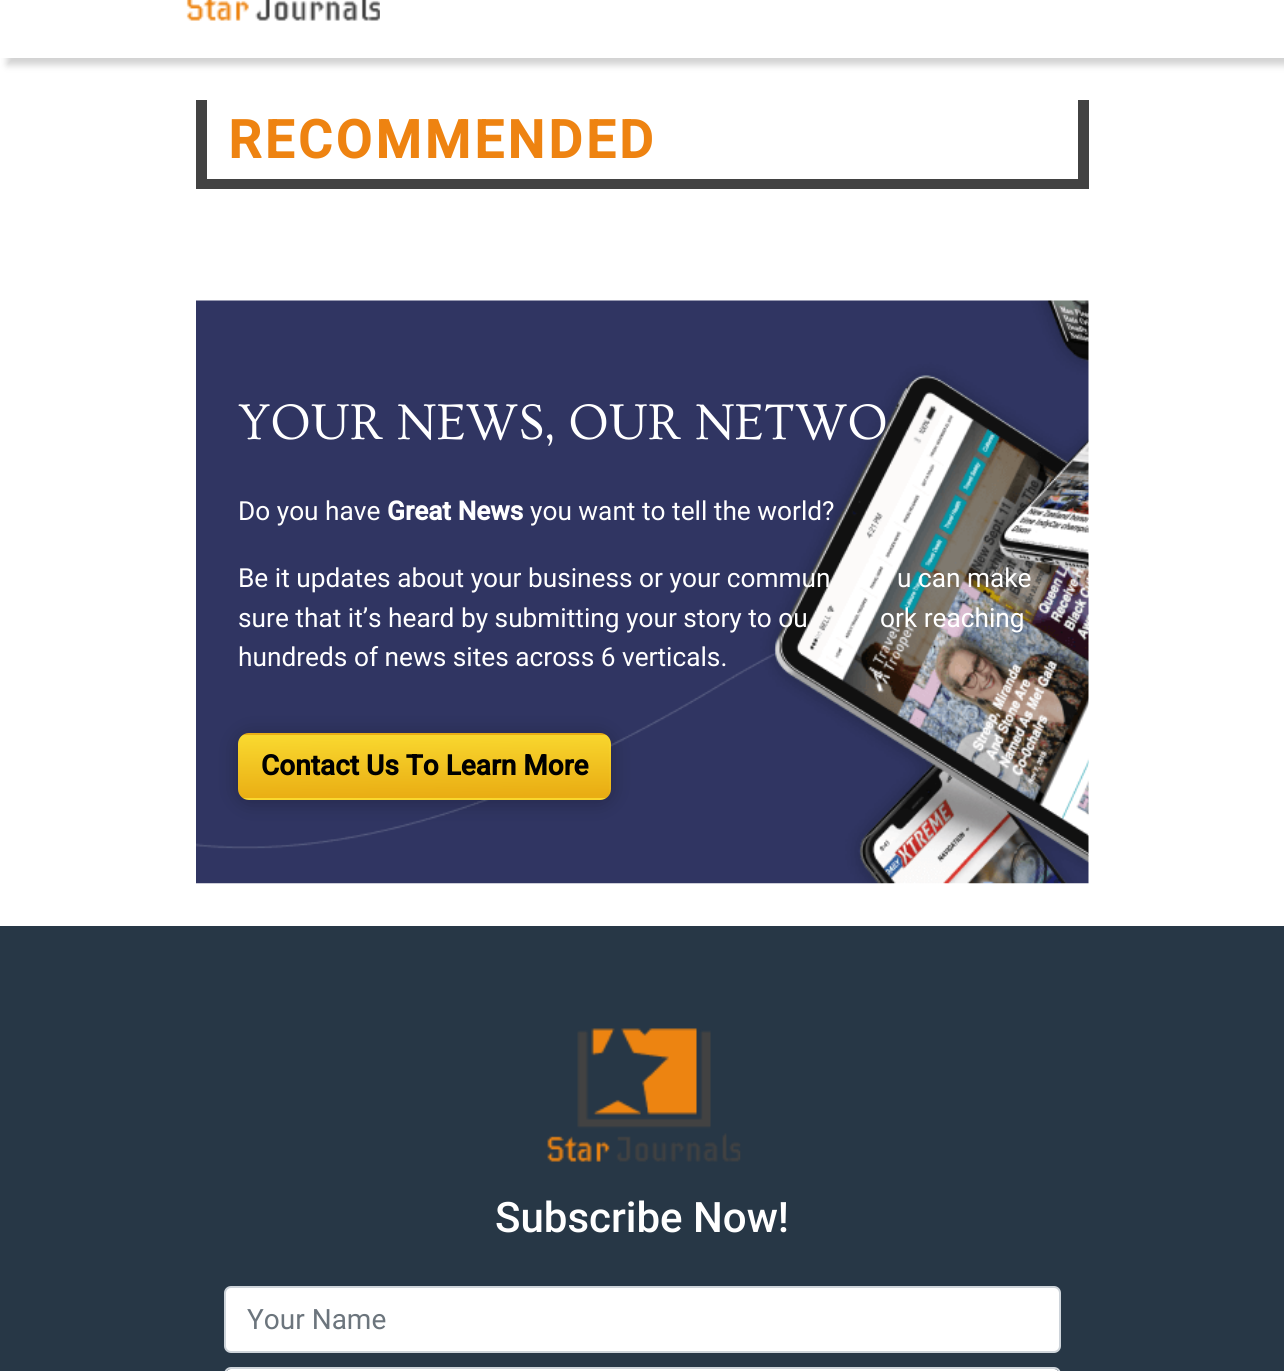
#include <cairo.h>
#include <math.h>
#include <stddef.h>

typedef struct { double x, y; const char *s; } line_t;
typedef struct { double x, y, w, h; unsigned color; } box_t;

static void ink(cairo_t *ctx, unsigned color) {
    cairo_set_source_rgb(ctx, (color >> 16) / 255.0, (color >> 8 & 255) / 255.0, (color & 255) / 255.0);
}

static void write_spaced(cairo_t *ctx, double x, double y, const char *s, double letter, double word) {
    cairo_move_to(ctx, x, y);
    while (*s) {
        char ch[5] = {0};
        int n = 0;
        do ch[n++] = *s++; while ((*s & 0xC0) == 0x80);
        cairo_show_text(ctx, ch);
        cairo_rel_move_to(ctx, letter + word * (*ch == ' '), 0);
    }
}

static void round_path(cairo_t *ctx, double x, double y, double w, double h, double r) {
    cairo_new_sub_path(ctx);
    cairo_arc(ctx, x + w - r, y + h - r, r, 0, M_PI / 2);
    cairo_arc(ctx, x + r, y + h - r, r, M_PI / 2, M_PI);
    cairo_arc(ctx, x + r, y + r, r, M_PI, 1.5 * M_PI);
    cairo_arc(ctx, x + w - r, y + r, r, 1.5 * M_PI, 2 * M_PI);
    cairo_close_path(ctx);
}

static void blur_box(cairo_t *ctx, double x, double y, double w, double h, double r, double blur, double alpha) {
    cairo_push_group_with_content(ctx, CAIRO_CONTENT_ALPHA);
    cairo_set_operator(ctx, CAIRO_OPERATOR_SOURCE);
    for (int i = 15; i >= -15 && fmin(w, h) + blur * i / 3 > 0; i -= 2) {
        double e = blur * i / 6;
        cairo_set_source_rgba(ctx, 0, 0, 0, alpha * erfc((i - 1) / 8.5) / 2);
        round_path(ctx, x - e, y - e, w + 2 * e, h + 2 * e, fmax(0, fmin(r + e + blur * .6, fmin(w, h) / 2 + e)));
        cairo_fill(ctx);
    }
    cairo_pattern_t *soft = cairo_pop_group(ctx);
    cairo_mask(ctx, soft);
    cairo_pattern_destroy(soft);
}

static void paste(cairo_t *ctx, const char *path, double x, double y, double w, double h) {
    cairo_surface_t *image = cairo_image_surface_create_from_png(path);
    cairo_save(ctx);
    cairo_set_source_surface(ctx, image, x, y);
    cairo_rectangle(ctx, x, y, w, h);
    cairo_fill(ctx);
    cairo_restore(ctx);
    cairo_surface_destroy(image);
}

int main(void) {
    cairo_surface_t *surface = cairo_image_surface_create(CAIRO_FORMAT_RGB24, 1284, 1371);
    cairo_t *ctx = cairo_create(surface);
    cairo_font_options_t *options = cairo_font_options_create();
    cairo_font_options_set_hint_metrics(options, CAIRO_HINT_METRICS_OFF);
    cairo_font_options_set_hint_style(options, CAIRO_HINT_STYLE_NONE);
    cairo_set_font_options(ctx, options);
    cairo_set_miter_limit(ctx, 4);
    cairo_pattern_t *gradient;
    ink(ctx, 0xFFFFFF);
    cairo_paint(ctx);
    cairo_save(ctx);
    cairo_set_fill_rule(ctx, CAIRO_FILL_RULE_EVEN_ODD);
    cairo_new_path(ctx);
    cairo_move_to(ctx, 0, 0);
    cairo_line_to(ctx, 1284, 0);
    cairo_line_to(ctx, 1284, 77);
    cairo_line_to(ctx, 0, 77);
    cairo_close_path(ctx);
    cairo_move_to(ctx, 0, -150);
    cairo_line_to(ctx, 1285, -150);
    cairo_line_to(ctx, 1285, 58);
    cairo_line_to(ctx, 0, 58);
    cairo_close_path(ctx);
    cairo_clip(ctx);
    ink(ctx, 0xD2D2D2);
    blur_box(ctx, 7, -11, 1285, 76, 0, 3.5, 1);
    cairo_restore(ctx);
    paste(ctx, "media/1.png", 186, 0, 194, 21);
    {
        static const box_t items[] = {
            {1078, 100, 11, 79, 0x424242},
            {207, 179, 882, 10, 0x424242},
            {196, 100, 11, 89, 0x424242},
        };
        for (size_t i = 0; i < sizeof items / sizeof *items; i++) {
            ink(ctx, items[i].color);
            cairo_rectangle(ctx, items[i].x, items[i].y, items[i].w, items[i].h);
            cairo_fill(ctx);
        }
    }
    cairo_select_font_face(ctx, "Roboto", CAIRO_FONT_SLANT_NORMAL, CAIRO_FONT_WEIGHT_BOLD);
    cairo_set_font_size(ctx, 52.5);
    ink(ctx, 0xEE8311);
    write_spaced(ctx, 228, 158, "RECOMMENDED", 3.5, 0);
    paste(ctx, "media/2.png", 196, 300, 893, 584);
    cairo_select_font_face(ctx, "Ovo", CAIRO_FONT_SLANT_NORMAL, CAIRO_FONT_WEIGHT_NORMAL);
    ink(ctx, 0xFFFFFF);
    cairo_move_to(ctx, 238, 439);
    cairo_show_text(ctx, "YOUR NEWS, OUR NETWO");
    cairo_select_font_face(ctx, "Roboto", CAIRO_FONT_SLANT_NORMAL, CAIRO_FONT_WEIGHT_NORMAL);
    cairo_set_font_size(ctx, 26.25);
    cairo_move_to(ctx, 238, 520);
    cairo_show_text(ctx, "Do you have");
    cairo_select_font_face(ctx, "Roboto", CAIRO_FONT_SLANT_NORMAL, CAIRO_FONT_WEIGHT_BOLD);
    cairo_move_to(ctx, 387, 520);
    cairo_show_text(ctx, "Great News");
    cairo_select_font_face(ctx, "Roboto", CAIRO_FONT_SLANT_NORMAL, CAIRO_FONT_WEIGHT_NORMAL);
    {
        static const line_t items[] = {
            {530, 520, "you want to tell the world?"},
            {238, 587, "Be it updates about your business or your commun"},
            {897, 587, "u can make"},
            {238, 627, "sure that it’s heard by submitting your story to ou"},
            {880, 627, "ork reaching"},
            {238, 666, "hundreds of news sites across 6 verticals."},
        };
        for (size_t i = 0; i < sizeof items / sizeof *items; i++) {
            cairo_move_to(ctx, items[i].x, items[i].y);
            cairo_show_text(ctx, items[i].s);
        }
    }
    ink(ctx, 0x000000);
    blur_box(ctx, 238, 735, 373, 67, 11, 10.5, 0.25);
    cairo_save(ctx);
    round_path(ctx, 238, 733, 373, 67, 11);
    cairo_clip(ctx);
    gradient = cairo_pattern_create_linear(424, 670, 425, 737);
    cairo_pattern_add_color_stop_rgba(gradient, 0.02, 0.976, 0.847, 0.184, 1);
    cairo_pattern_add_color_stop_rgba(gradient, 0.96, 0.914, 0.678, 0.075, 1);
    cairo_set_source(ctx, gradient);
    cairo_pattern_destroy(gradient);
    cairo_rectangle(ctx, 240, 733, 369, 2);
    cairo_fill(ctx);
    gradient = cairo_pattern_create_linear(55, 733, 55, 800);
    cairo_pattern_add_color_stop_rgba(gradient, 0.02, 0.976, 0.847, 0.184, 1);
    cairo_pattern_add_color_stop_rgba(gradient, 0.96, 0.914, 0.678, 0.075, 1);
    cairo_set_source(ctx, gradient);
    cairo_pattern_destroy(gradient);
    cairo_rectangle(ctx, 238, 735, 2, 63);
    cairo_fill(ctx);
    gradient = cairo_pattern_create_linear(424, 733, 425, 800);
    cairo_pattern_add_color_stop_rgba(gradient, 0.02, 0.976, 0.847, 0.184, 1);
    cairo_pattern_add_color_stop_rgba(gradient, 0.96, 0.914, 0.678, 0.075, 1);
    cairo_set_source(ctx, gradient);
    cairo_pattern_destroy(gradient);
    cairo_rectangle(ctx, 240, 735, 369, 63);
    cairo_fill(ctx);
    gradient = cairo_pattern_create_linear(793, 733, 794, 800);
    cairo_pattern_add_color_stop_rgba(gradient, 0.02, 0.976, 0.847, 0.184, 1);
    cairo_pattern_add_color_stop_rgba(gradient, 0.96, 0.914, 0.678, 0.075, 1);
    cairo_set_source(ctx, gradient);
    cairo_pattern_destroy(gradient);
    cairo_rectangle(ctx, 609, 735, 2, 63);
    cairo_fill(ctx);
    gradient = cairo_pattern_create_linear(424, 796, 425, 863);
    cairo_pattern_add_color_stop_rgba(gradient, 0.02, 0.976, 0.847, 0.184, 1);
    cairo_pattern_add_color_stop_rgba(gradient, 0.96, 0.914, 0.678, 0.075, 1);
    cairo_set_source(ctx, gradient);
    cairo_pattern_destroy(gradient);
    cairo_rectangle(ctx, 240, 798, 369, 2);
    cairo_fill(ctx);
    cairo_restore(ctx);
    cairo_select_font_face(ctx, "Roboto", CAIRO_FONT_SLANT_NORMAL, CAIRO_FONT_WEIGHT_BOLD);
    cairo_set_font_size(ctx, 28);
    ink(ctx, 0x000000);
    cairo_move_to(ctx, 261, 775);
    cairo_show_text(ctx, "Contact Us To Learn More");
    ink(ctx, 0x273746);
    cairo_rectangle(ctx, 0, 926, 1284, 445);
    cairo_fill(ctx);
    paste(ctx, "media/3.png", 547, 1028, 194, 134);
    cairo_select_font_face(ctx, "Roboto Medium", CAIRO_FONT_SLANT_NORMAL, CAIRO_FONT_WEIGHT_NORMAL);
    cairo_set_font_size(ctx, 42);
    ink(ctx, 0xFFFFFF);
    cairo_move_to(ctx, 495, 1232);
    cairo_show_text(ctx, "Subscribe Now!");
    round_path(ctx, 225, 1287, 835, 65, 6);
    cairo_fill_preserve(ctx);
    ink(ctx, 0xCED4DA);
    cairo_stroke(ctx);
    cairo_select_font_face(ctx, "Roboto", CAIRO_FONT_SLANT_NORMAL, CAIRO_FONT_WEIGHT_NORMAL);
    cairo_set_font_size(ctx, 28);
    ink(ctx, 0x6C757D);
    cairo_move_to(ctx, 247, 1329);
    cairo_show_text(ctx, "Your Name");
    ink(ctx, 0xFFFFFF);
    round_path(ctx, 226, 1369, 833, 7, 5);
    cairo_fill(ctx);
    round_path(ctx, 225, 1368, 835, 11, 6);
    ink(ctx, 0xCED4DA);
    cairo_stroke(ctx);
    cairo_surface_write_to_png(surface, "image.png");
    cairo_font_options_destroy(options);
    cairo_destroy(ctx);
    cairo_surface_destroy(surface);
    return 0;
}
